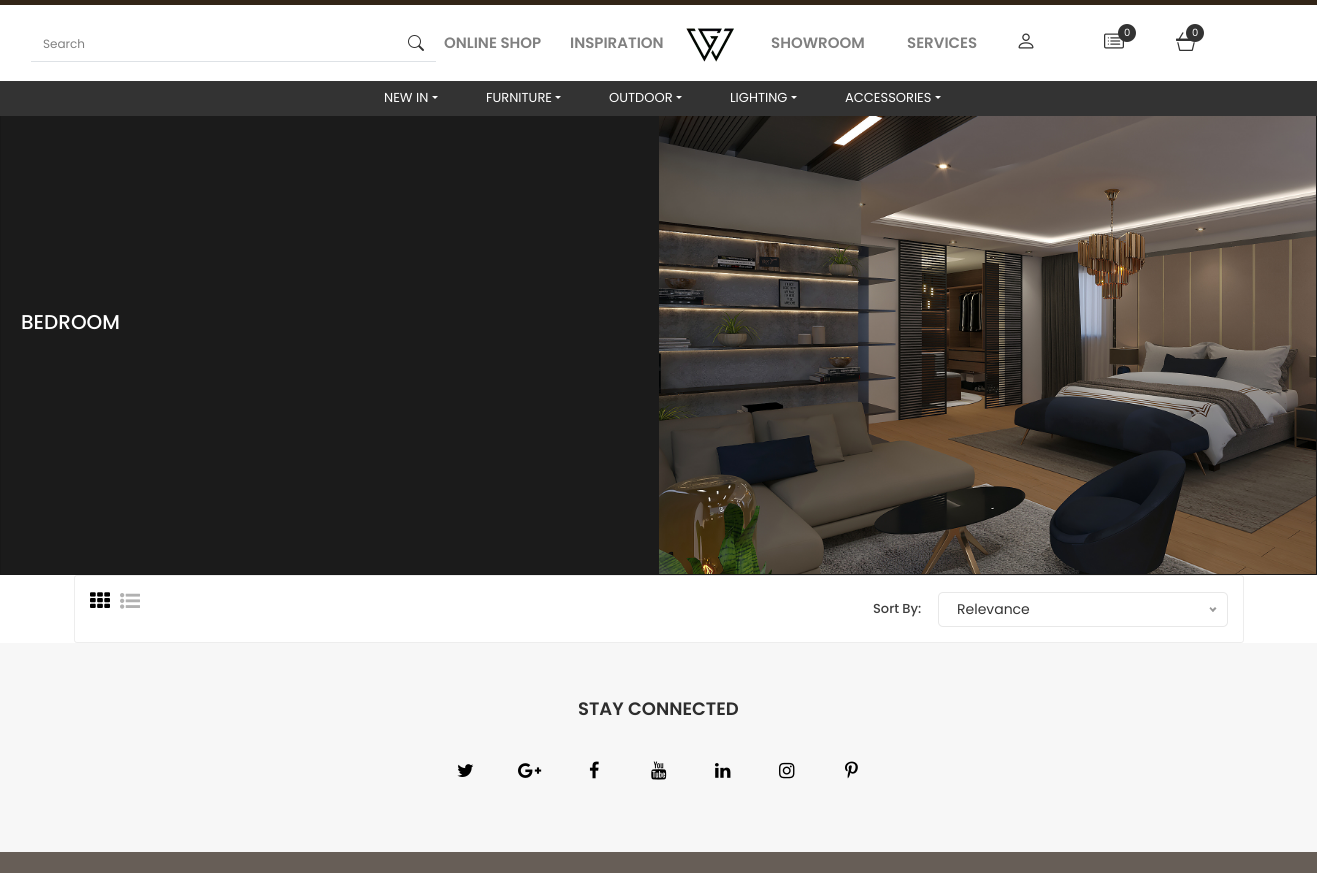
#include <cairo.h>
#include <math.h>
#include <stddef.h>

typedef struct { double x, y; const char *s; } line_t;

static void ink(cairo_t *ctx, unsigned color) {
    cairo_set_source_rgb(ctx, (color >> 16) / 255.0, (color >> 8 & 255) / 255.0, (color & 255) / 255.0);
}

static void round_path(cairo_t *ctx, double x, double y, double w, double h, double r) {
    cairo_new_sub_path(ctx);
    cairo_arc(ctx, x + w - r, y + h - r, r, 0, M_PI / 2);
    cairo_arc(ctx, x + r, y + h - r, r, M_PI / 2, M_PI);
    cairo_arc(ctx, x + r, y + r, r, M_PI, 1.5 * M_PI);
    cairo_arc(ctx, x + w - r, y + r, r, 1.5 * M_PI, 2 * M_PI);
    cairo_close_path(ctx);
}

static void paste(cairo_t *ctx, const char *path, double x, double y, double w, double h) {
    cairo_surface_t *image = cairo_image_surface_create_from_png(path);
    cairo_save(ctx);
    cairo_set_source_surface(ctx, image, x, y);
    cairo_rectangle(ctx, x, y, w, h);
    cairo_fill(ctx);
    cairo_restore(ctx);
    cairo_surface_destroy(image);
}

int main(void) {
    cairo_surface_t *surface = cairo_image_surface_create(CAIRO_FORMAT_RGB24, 1317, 873);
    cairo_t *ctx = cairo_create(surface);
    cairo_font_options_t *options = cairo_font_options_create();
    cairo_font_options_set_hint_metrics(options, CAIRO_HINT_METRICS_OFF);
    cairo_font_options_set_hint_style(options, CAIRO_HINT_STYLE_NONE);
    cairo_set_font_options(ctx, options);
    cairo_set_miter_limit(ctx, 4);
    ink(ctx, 0xFFFFFF);
    cairo_paint(ctx);
    ink(ctx, 0x1B1B1B);
    cairo_rectangle(ctx, 1, 116, 658, 458);
    cairo_fill(ctx);
    cairo_rectangle(ctx, 0.5, 80.5, 1316, 494);
    ink(ctx, 0x181818);
    cairo_set_line_width(ctx, 1);
    cairo_stroke(ctx);
    ink(ctx, 0xFFFFFF);
    cairo_rectangle(ctx, 0, 80, 1317, 1);
    cairo_fill(ctx);
    ink(ctx, 0x322517);
    cairo_rectangle(ctx, 0, 0, 1317, 5);
    cairo_fill(ctx);
    paste(ctx, "media/1.png", 686, 28, 48, 34);
    paste(ctx, "media/2.png", 1104, 33, 20, 16);
    ink(ctx, 0x333333);
    cairo_arc(ctx, 1127, 33, 9, 0, 2 * M_PI);
    cairo_fill(ctx);
    cairo_select_font_face(ctx, "Poppins", CAIRO_FONT_SLANT_NORMAL, CAIRO_FONT_WEIGHT_NORMAL);
    cairo_set_font_size(ctx, 10);
    ink(ctx, 0xFFFFFF);
    cairo_move_to(ctx, 1124, 36);
    cairo_show_text(ctx, "0");
    paste(ctx, "media/3.png", 1176, 32, 19, 19);
    ink(ctx, 0x333333);
    cairo_arc(ctx, 1195, 33, 9, 0, 2 * M_PI);
    cairo_fill(ctx);
    ink(ctx, 0xFFFFFF);
    cairo_move_to(ctx, 1192, 36);
    cairo_show_text(ctx, "0");
    paste(ctx, "media/4.png", 1018, 33, 16, 16);
    ink(ctx, 0xDEE2E6);
    cairo_rectangle(ctx, 31, 61, 405, 1);
    cairo_fill(ctx);
    cairo_set_font_size(ctx, 12);
    ink(ctx, 0x808080);
    cairo_move_to(ctx, 43, 48);
    cairo_show_text(ctx, "Search");
    paste(ctx, "media/5.png", 408, 35, 16, 16);
    cairo_select_font_face(ctx, "Poppins SemiBold", CAIRO_FONT_SLANT_NORMAL, CAIRO_FONT_WEIGHT_NORMAL);
    cairo_set_font_size(ctx, 15);
    {
        static const line_t items[] = {
            {444, 48, "ONLINE SHOP"},
            {570, 48, "INSPIRATION"},
            {771, 48, "SHOWROOM"},
            {907, 48, "SERVICES"},
        };
        for (size_t i = 0; i < sizeof items / sizeof *items; i++) {
            cairo_move_to(ctx, items[i].x, items[i].y);
            cairo_show_text(ctx, items[i].s);
        }
    }
    ink(ctx, 0x333333);
    cairo_rectangle(ctx, 0, 81, 1317, 35);
    cairo_fill(ctx);
    cairo_select_font_face(ctx, "Poppins", CAIRO_FONT_SLANT_NORMAL, CAIRO_FONT_WEIGHT_NORMAL);
    cairo_set_font_size(ctx, 13);
    ink(ctx, 0xFFFFFF);
    cairo_move_to(ctx, 384, 102);
    cairo_show_text(ctx, "NEW IN");
    cairo_new_path(ctx);
    cairo_move_to(ctx, 432, 96);
    cairo_line_to(ctx, 438, 96);
    cairo_line_to(ctx, 435, 99);
    cairo_close_path(ctx);
    cairo_fill(ctx);
    cairo_move_to(ctx, 486, 102);
    cairo_show_text(ctx, "FURNITURE");
    cairo_new_path(ctx);
    cairo_move_to(ctx, 555, 96);
    cairo_line_to(ctx, 561, 96);
    cairo_line_to(ctx, 558, 99);
    cairo_close_path(ctx);
    cairo_fill(ctx);
    cairo_move_to(ctx, 609, 102);
    cairo_show_text(ctx, "OUTDOOR");
    cairo_new_path(ctx);
    cairo_move_to(ctx, 676, 96);
    cairo_line_to(ctx, 682, 96);
    cairo_line_to(ctx, 679, 99);
    cairo_close_path(ctx);
    cairo_fill(ctx);
    cairo_move_to(ctx, 730, 102);
    cairo_show_text(ctx, "LIGHTING");
    cairo_new_path(ctx);
    cairo_move_to(ctx, 791, 96);
    cairo_line_to(ctx, 797, 96);
    cairo_line_to(ctx, 794, 99);
    cairo_close_path(ctx);
    cairo_fill(ctx);
    cairo_move_to(ctx, 845, 102);
    cairo_show_text(ctx, "ACCESSORIES");
    cairo_new_path(ctx);
    cairo_move_to(ctx, 935, 96);
    cairo_line_to(ctx, 941, 96);
    cairo_line_to(ctx, 938, 99);
    cairo_close_path(ctx);
    cairo_fill(ctx);
    cairo_select_font_face(ctx, "Poppins Medium", CAIRO_FONT_SLANT_NORMAL, CAIRO_FONT_WEIGHT_NORMAL);
    cairo_set_font_size(ctx, 20);
    cairo_move_to(ctx, 21, 329);
    cairo_show_text(ctx, "BEDROOM");
    paste(ctx, "media/6.png", 659, 116, 657, 458);
    round_path(ctx, 74.5, 575.5, 1169, 67, 2.5);
    ink(ctx, 0xEDEDED);
    cairo_stroke(ctx);
    paste(ctx, "media/7.png", 90, 592, 20, 16);
    paste(ctx, "media/8.png", 120, 593, 20, 16);
    cairo_set_font_size(ctx, 13);
    ink(ctx, 0x3E3E3E);
    cairo_move_to(ctx, 873, 613);
    cairo_show_text(ctx, "Sort By:");
    round_path(ctx, 938.5, 592.5, 289, 34, 4.5);
    ink(ctx, 0xE8E8E8);
    cairo_stroke(ctx);
    cairo_select_font_face(ctx, "Poppins", CAIRO_FONT_SLANT_NORMAL, CAIRO_FONT_WEIGHT_NORMAL);
    cairo_set_font_size(ctx, 14);
    ink(ctx, 0x343434);
    cairo_move_to(ctx, 957, 614);
    cairo_show_text(ctx, "Relevance");
    ink(ctx, 0x999999);
    cairo_new_path(ctx);
    cairo_move_to(ctx, 1215, 607);
    cairo_line_to(ctx, 1216.5, 608.5);
    cairo_line_to(ctx, 1213, 612);
    cairo_line_to(ctx, 1211.5, 610.5);
    cairo_close_path(ctx);
    cairo_fill(ctx);
    cairo_new_path(ctx);
    cairo_move_to(ctx, 1210.5, 607);
    cairo_line_to(ctx, 1214, 610.5);
    cairo_line_to(ctx, 1213, 612);
    cairo_line_to(ctx, 1209.5, 608.5);
    cairo_close_path(ctx);
    cairo_fill(ctx);
    ink(ctx, 0xF7F7F7);
    cairo_rectangle(ctx, 0, 643, 1317, 209);
    cairo_fill(ctx);
    cairo_select_font_face(ctx, "Poppins SemiBold", CAIRO_FONT_SLANT_NORMAL, CAIRO_FONT_WEIGHT_NORMAL);
    cairo_set_font_size(ctx, 18);
    ink(ctx, 0x2D2D2D);
    cairo_move_to(ctx, 578, 715);
    cairo_show_text(ctx, "STAY CONNECTED");
    paste(ctx, "media/9.png", 457, 764, 17, 13);
    paste(ctx, "media/10.png", 518, 763, 24, 15);
    paste(ctx, "media/11.png", 589, 761, 10, 18);
    paste(ctx, "media/12.png", 651, 761, 16, 19);
    paste(ctx, "media/13.png", 715, 763, 16, 15);
    paste(ctx, "media/14.png", 779, 762, 16, 17);
    paste(ctx, "media/15.png", 845, 761, 13, 18);
    ink(ctx, 0x675E57);
    cairo_rectangle(ctx, 0, 852, 1317, 21);
    cairo_fill(ctx);
    cairo_surface_write_to_png(surface, "image.png");
    cairo_font_options_destroy(options);
    cairo_destroy(ctx);
    cairo_surface_destroy(surface);
    return 0;
}
